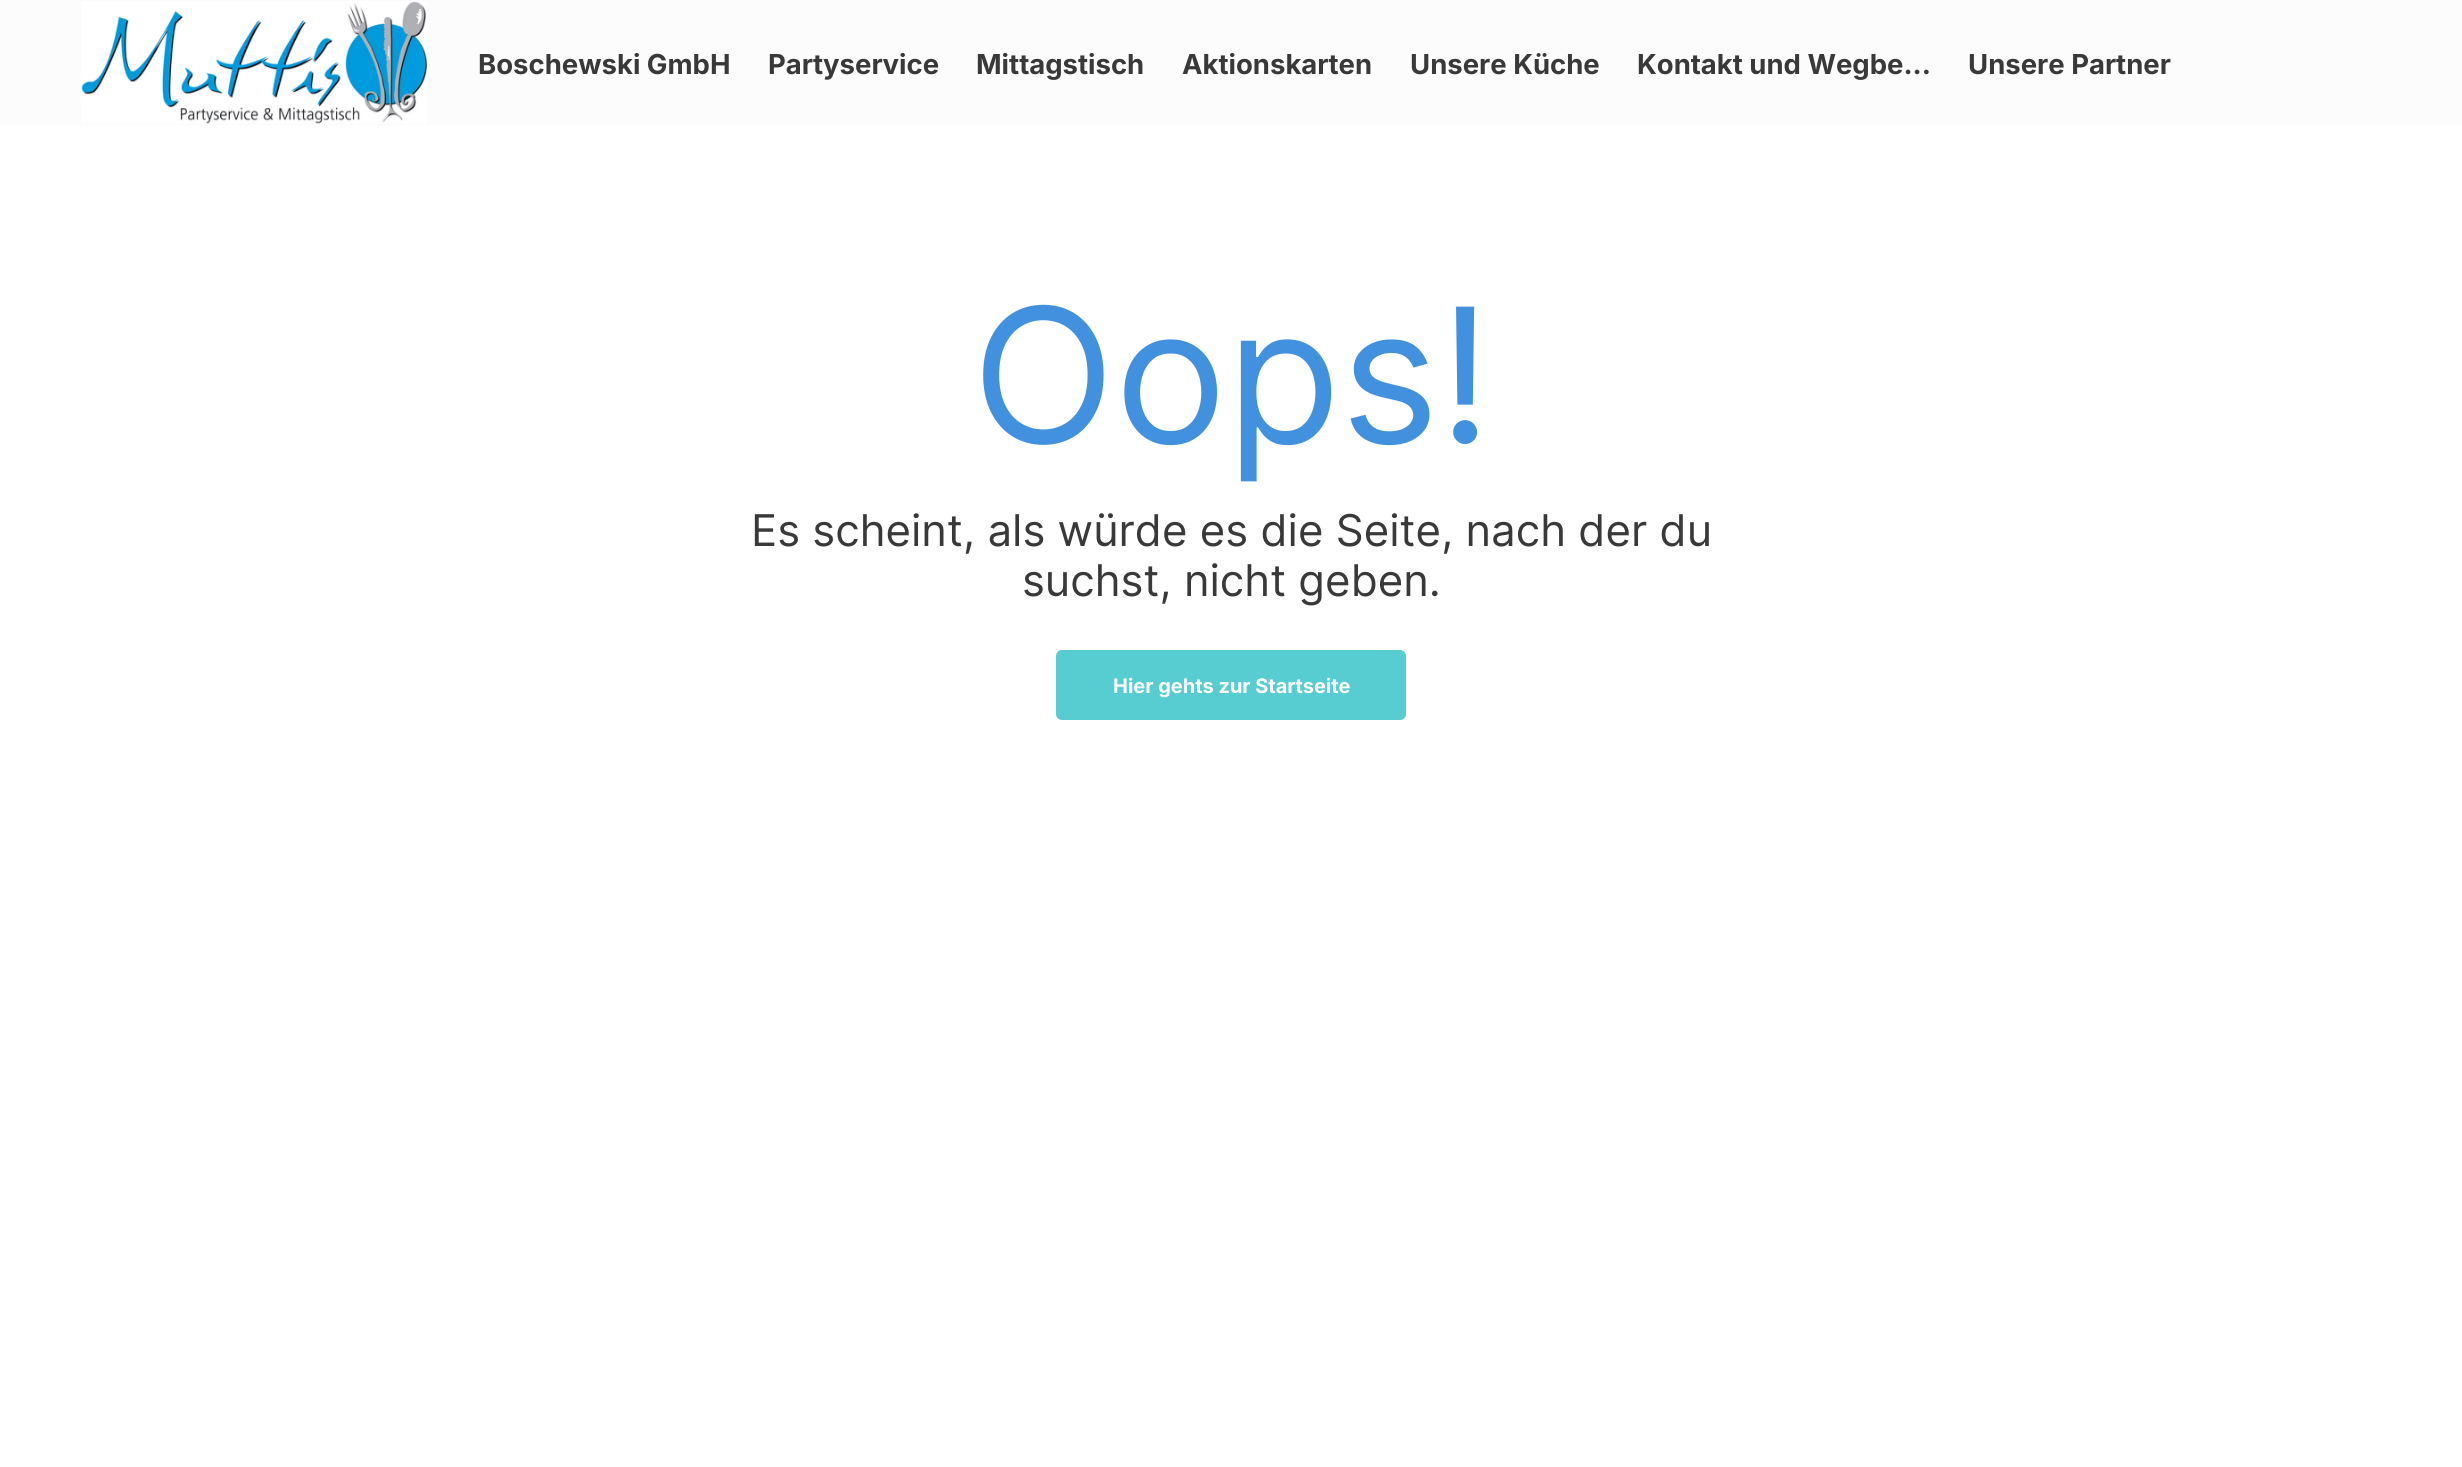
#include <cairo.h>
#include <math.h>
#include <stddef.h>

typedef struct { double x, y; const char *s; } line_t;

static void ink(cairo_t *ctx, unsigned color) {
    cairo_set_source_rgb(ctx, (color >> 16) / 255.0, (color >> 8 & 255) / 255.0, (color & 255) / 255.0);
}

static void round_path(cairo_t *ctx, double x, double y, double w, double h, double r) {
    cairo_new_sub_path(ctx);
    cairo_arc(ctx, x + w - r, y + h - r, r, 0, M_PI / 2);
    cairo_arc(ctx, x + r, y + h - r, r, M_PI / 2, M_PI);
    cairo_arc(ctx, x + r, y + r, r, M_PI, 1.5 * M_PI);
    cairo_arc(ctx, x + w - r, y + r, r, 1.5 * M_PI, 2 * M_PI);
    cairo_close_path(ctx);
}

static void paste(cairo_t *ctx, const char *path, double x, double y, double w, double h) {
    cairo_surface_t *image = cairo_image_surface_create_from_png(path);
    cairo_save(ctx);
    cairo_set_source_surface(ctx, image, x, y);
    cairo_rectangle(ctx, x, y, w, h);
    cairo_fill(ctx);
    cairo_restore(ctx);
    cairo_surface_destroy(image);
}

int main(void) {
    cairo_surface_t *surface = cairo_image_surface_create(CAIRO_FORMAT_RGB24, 2462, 1467);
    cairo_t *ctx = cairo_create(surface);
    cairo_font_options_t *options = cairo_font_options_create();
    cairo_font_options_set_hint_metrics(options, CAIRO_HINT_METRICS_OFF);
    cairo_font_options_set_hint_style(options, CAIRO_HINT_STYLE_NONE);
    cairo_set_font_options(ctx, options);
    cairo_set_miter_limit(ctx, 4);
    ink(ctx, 0xFFFFFF);
    cairo_paint(ctx);
    ink(ctx, 0xFCFCFC);
    cairo_rectangle(ctx, 0, 0, 2462, 125);
    cairo_fill(ctx);
    paste(ctx, "media/1.png", 81, 1, 346, 123);
    cairo_select_font_face(ctx, "Inter", CAIRO_FONT_SLANT_NORMAL, CAIRO_FONT_WEIGHT_BOLD);
    cairo_set_font_size(ctx, 27.5);
    ink(ctx, 0x393939);
    {
        static const line_t items[] = {
            {478, 74, "Boschewski GmbH"},
            {768, 74, "Partyservice"},
            {976, 74, "Mittagstisch"},
            {1182, 74, "Aktionskarten"},
            {1410, 74, "Unsere Küche"},
            {1637, 74, "Kontakt und Wegbe..."},
            {1968, 74, "Unsere Partner"},
        };
        for (size_t i = 0; i < sizeof items / sizeof *items; i++) {
            cairo_move_to(ctx, items[i].x, items[i].y);
            cairo_show_text(ctx, items[i].s);
        }
    }
    cairo_select_font_face(ctx, "Inter", CAIRO_FONT_SLANT_NORMAL, CAIRO_FONT_WEIGHT_NORMAL);
    cairo_set_font_size(ctx, 187.5);
    ink(ctx, 0x4291DF);
    cairo_move_to(ctx, 972, 443);
    cairo_show_text(ctx, "Oops!");
    cairo_set_font_size(ctx, 43.75);
    ink(ctx, 0x393939);
    cairo_move_to(ctx, 751, 546);
    cairo_show_text(ctx, "Es scheint, als würde es die Seite, nach der du");
    cairo_move_to(ctx, 1022, 596);
    cairo_show_text(ctx, "suchst, nicht geben.");
    ink(ctx, 0x57CDD1);
    round_path(ctx, 1056, 650, 350, 70, 6);
    cairo_fill(ctx);
    cairo_select_font_face(ctx, "Inter", CAIRO_FONT_SLANT_NORMAL, CAIRO_FONT_WEIGHT_BOLD);
    cairo_set_font_size(ctx, 20);
    ink(ctx, 0xFFFFFF);
    cairo_move_to(ctx, 1113, 693);
    cairo_show_text(ctx, "Hier gehts zur Startseite");
    cairo_surface_write_to_png(surface, "image.png");
    cairo_font_options_destroy(options);
    cairo_destroy(ctx);
    cairo_surface_destroy(surface);
    return 0;
}
